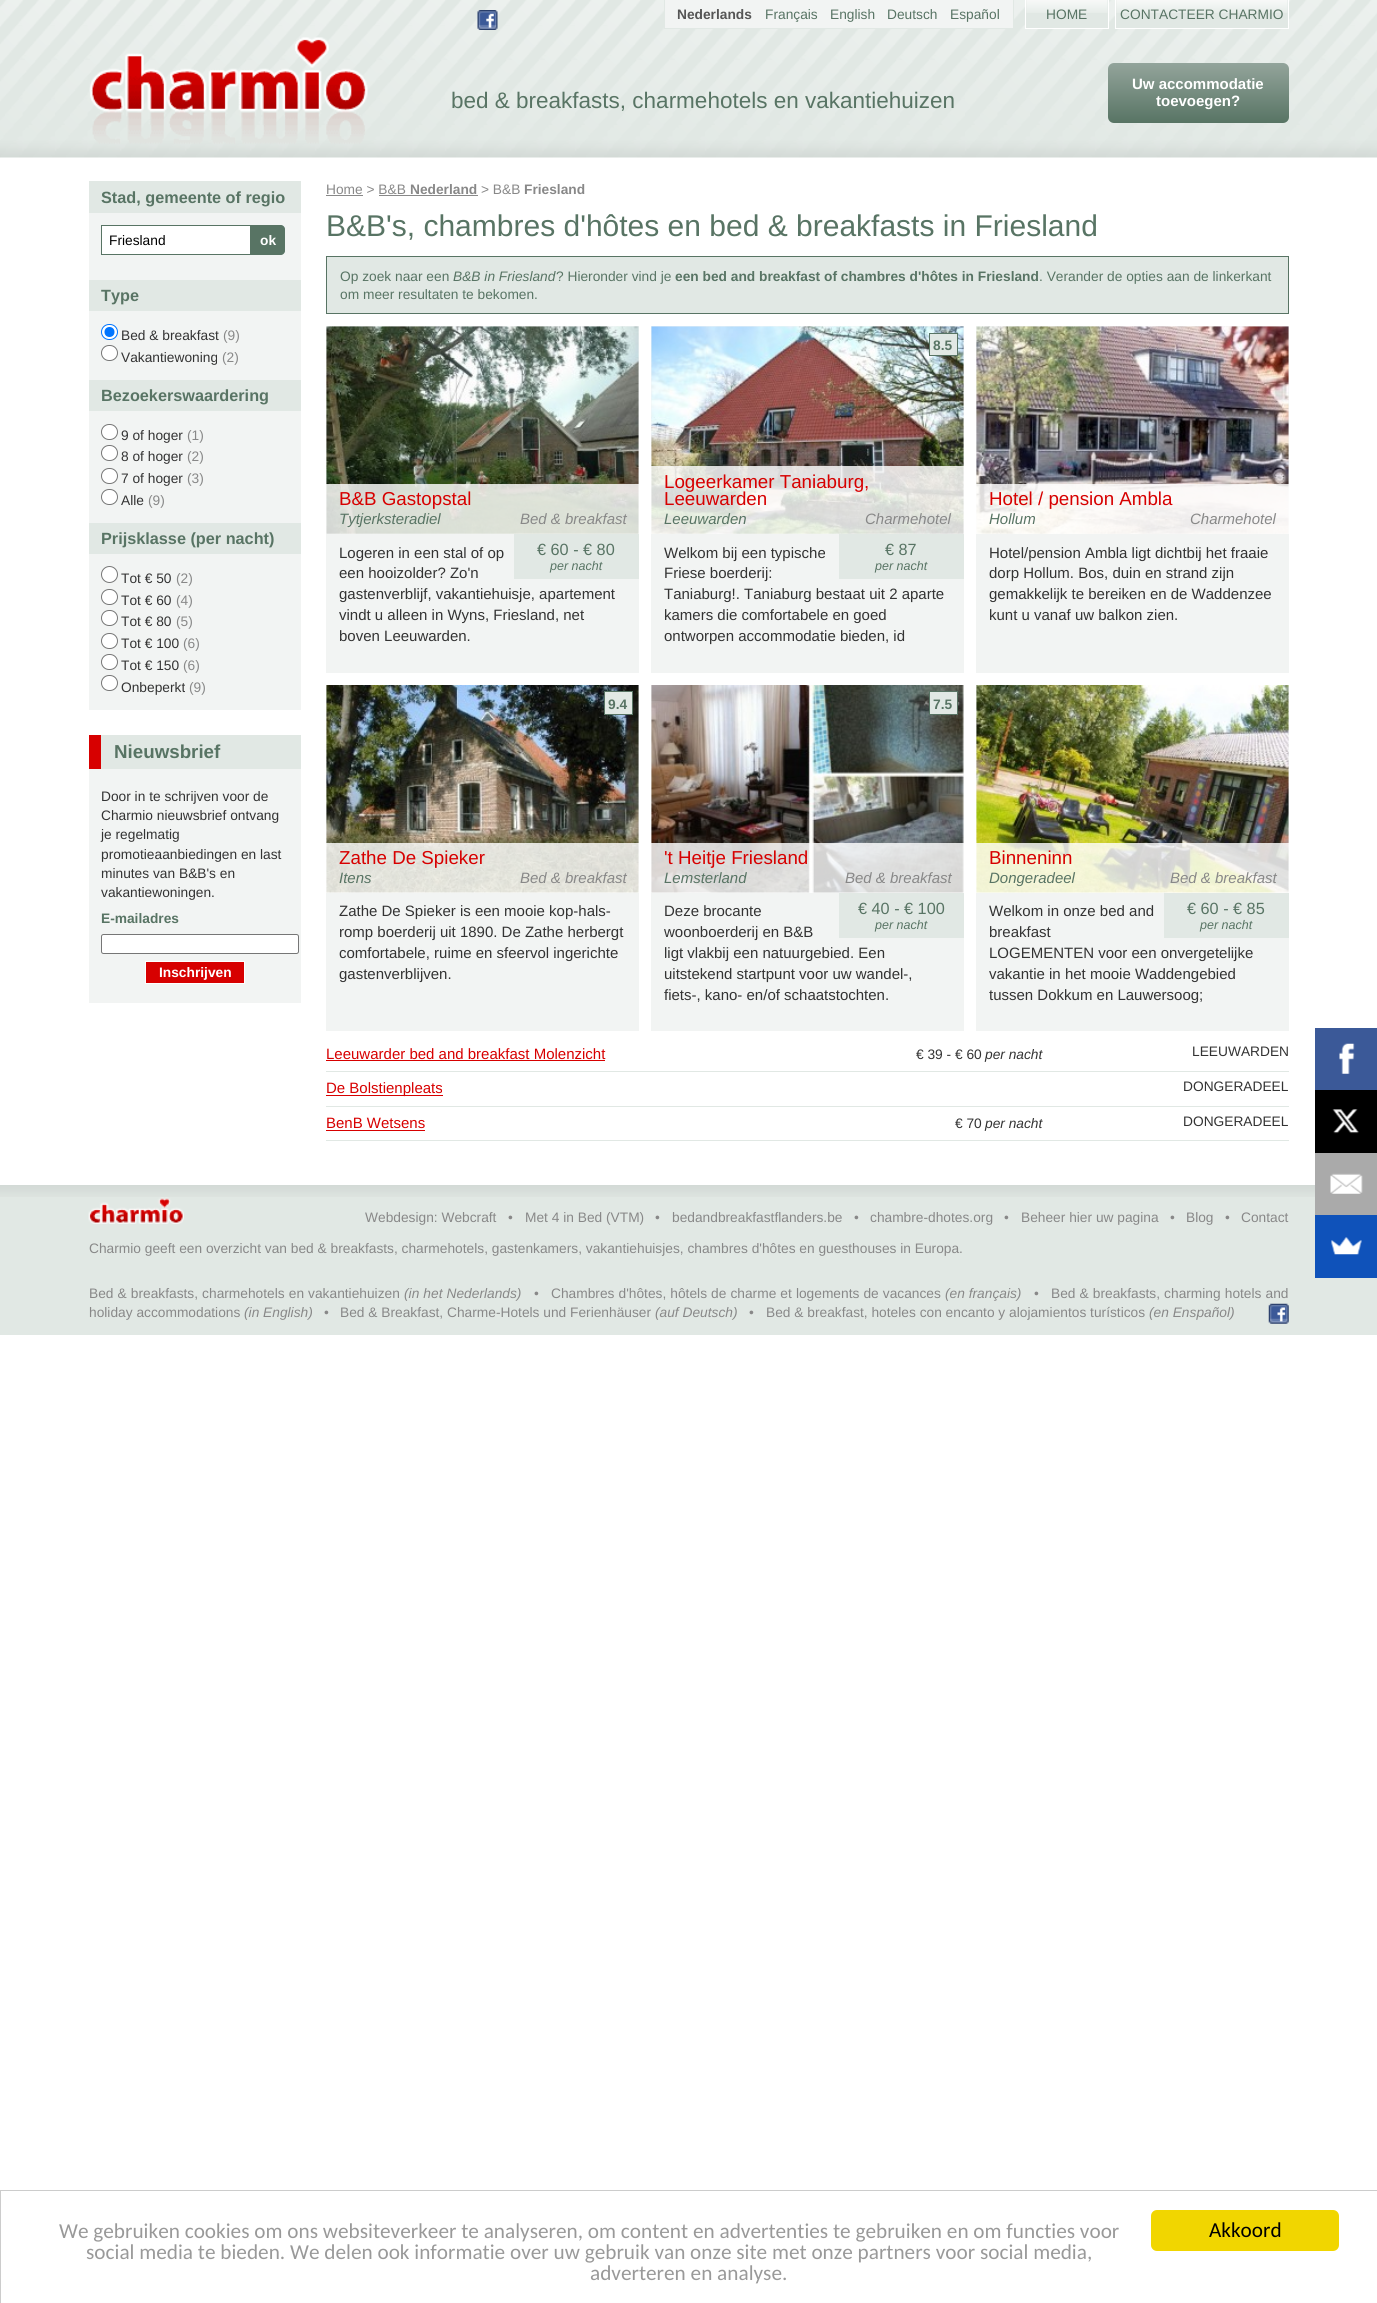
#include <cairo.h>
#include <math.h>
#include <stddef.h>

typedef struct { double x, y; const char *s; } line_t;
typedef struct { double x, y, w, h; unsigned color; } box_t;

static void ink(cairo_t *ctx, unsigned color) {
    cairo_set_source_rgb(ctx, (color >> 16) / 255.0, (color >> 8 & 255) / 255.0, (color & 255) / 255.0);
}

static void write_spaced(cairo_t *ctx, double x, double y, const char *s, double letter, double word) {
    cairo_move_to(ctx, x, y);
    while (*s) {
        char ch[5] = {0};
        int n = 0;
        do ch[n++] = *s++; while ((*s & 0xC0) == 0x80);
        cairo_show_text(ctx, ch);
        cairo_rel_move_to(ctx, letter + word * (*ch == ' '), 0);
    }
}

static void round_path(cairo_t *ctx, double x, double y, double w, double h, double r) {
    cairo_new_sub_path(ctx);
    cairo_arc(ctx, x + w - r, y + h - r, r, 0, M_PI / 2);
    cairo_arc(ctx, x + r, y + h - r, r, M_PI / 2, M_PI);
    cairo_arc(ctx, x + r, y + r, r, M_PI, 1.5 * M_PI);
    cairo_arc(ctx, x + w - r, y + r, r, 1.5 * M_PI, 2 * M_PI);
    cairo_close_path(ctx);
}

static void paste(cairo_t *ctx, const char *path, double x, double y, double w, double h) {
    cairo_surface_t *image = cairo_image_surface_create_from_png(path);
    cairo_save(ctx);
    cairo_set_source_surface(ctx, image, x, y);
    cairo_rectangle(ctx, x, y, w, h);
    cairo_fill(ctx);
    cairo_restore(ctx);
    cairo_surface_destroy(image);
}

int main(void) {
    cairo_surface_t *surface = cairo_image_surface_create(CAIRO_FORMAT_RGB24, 1377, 2303);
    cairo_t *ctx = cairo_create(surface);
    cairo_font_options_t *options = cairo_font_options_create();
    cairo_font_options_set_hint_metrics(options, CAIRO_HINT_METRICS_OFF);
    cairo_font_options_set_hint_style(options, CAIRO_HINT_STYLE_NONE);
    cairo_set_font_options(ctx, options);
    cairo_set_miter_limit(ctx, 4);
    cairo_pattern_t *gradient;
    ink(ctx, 0xFFFFFF);
    cairo_paint(ctx);
    paste(ctx, "media/1.png", 0, 0, 1377, 158);
    paste(ctx, "media/2.png", 477, 10, 21, 20);
    {
        static const box_t items[] = {
            {665, 0, 348, 28, 0xF2F4F3},
            {1013, 0, 1, 29, 0xE1E8E4},
            {664, 28, 350, 1, 0xE1E8E4},
            {664, 0, 1, 29, 0xE1E8E4},
        };
        for (size_t i = 0; i < sizeof items / sizeof *items; i++) {
            ink(ctx, items[i].color);
            cairo_rectangle(ctx, items[i].x, items[i].y, items[i].w, items[i].h);
            cairo_fill(ctx);
        }
    }
    cairo_select_font_face(ctx, "Liberation Sans", CAIRO_FONT_SLANT_NORMAL, CAIRO_FONT_WEIGHT_BOLD);
    cairo_set_font_size(ctx, 13.75);
    ink(ctx, 0x555555);
    cairo_move_to(ctx, 677, 19);
    cairo_show_text(ctx, "Nederlands");
    cairo_select_font_face(ctx, "Liberation Sans", CAIRO_FONT_SLANT_NORMAL, CAIRO_FONT_WEIGHT_NORMAL);
    ink(ctx, 0x587464);
    {
        static const line_t items[] = {
            {765, 19, "Français"},
            {830, 19, "English"},
            {887, 19, "Deutsch"},
            {950, 19, "Español"},
        };
        for (size_t i = 0; i < sizeof items / sizeof *items; i++) {
            cairo_move_to(ctx, items[i].x, items[i].y);
            cairo_show_text(ctx, items[i].s);
        }
    }
    {
        static const box_t items[] = {
            {1108, 0, 1, 29, 0xFFFFFF},
            {1025, 28, 84, 1, 0xFFFFFF},
            {1025, 0, 1, 29, 0xFFFFFF},
            {1026, 0, 82, 28, 0xE1E8E4},
        };
        for (size_t i = 0; i < sizeof items / sizeof *items; i++) {
            ink(ctx, items[i].color);
            cairo_rectangle(ctx, items[i].x, items[i].y, items[i].w, items[i].h);
            cairo_fill(ctx);
        }
    }
    paste(ctx, "media/3.png", 1026, 0, 82, 13);
    ink(ctx, 0x587464);
    cairo_move_to(ctx, 1046, 19);
    cairo_show_text(ctx, "HOME");
    {
        static const box_t items[] = {
            {1288, 0, 1, 29, 0xFFFFFF},
            {1115, 28, 174, 1, 0xFFFFFF},
            {1115, 0, 1, 29, 0xFFFFFF},
            {1116, 0, 172, 28, 0xE1E8E4},
        };
        for (size_t i = 0; i < sizeof items / sizeof *items; i++) {
            ink(ctx, items[i].color);
            cairo_rectangle(ctx, items[i].x, items[i].y, items[i].w, items[i].h);
            cairo_fill(ctx);
        }
    }
    paste(ctx, "media/4.png", 1116, 0, 172, 13);
    ink(ctx, 0x587464);
    cairo_move_to(ctx, 1120, 19);
    cairo_show_text(ctx, "CONTACTEER CHARMIO");
    paste(ctx, "media/5.png", 89, 37, 279, 107);
    cairo_set_font_size(ctx, 22.5);
    cairo_move_to(ctx, 451, 108);
    cairo_show_text(ctx, "bed & breakfasts, charmehotels en vakantiehuizen");
    gradient = cairo_pattern_create_linear(1198, 62, 1198, 123);
    cairo_pattern_add_color_stop_rgba(gradient, 0, 0.58, 0.647, 0.612, 1);
    cairo_pattern_add_color_stop_rgba(gradient, 1, 0.345, 0.455, 0.392, 1);
    cairo_set_source(ctx, gradient);
    cairo_pattern_destroy(gradient);
    round_path(ctx, 1108, 63, 181, 60, 6);
    cairo_fill(ctx);
    cairo_select_font_face(ctx, "Liberation Sans", CAIRO_FONT_SLANT_NORMAL, CAIRO_FONT_WEIGHT_BOLD);
    cairo_set_font_size(ctx, 15);
    ink(ctx, 0xFFFFFF);
    cairo_move_to(ctx, 1132, 89);
    cairo_show_text(ctx, "Uw accommodatie");
    cairo_move_to(ctx, 1156, 106);
    cairo_show_text(ctx, "toevoegen?");
    ink(ctx, 0xE1E8E4);
    cairo_rectangle(ctx, 89, 181, 212, 32);
    cairo_fill(ctx);
    cairo_set_font_size(ctx, 16.25);
    ink(ctx, 0x587464);
    cairo_move_to(ctx, 101, 203);
    cairo_show_text(ctx, "Stad, gemeente of regio");
    ink(ctx, 0xF2F4F3);
    cairo_rectangle(ctx, 89, 213, 212, 67);
    cairo_fill(ctx);
    ink(ctx, 0xFFFFFF);
    cairo_rectangle(ctx, 101.5, 225.5, 149, 29);
    cairo_fill_preserve(ctx);
    ink(ctx, 0x587464);
    cairo_set_line_width(ctx, 1);
    cairo_stroke(ctx);
    cairo_select_font_face(ctx, "Liberation Sans", CAIRO_FONT_SLANT_NORMAL, CAIRO_FONT_WEIGHT_NORMAL);
    cairo_set_font_size(ctx, 13.75);
    ink(ctx, 0x000000);
    cairo_move_to(ctx, 109, 245);
    cairo_show_text(ctx, "Friesland");
    ink(ctx, 0x587464);
    cairo_new_path(ctx);
    cairo_move_to(ctx, 251, 225);
    cairo_line_to(ctx, 281, 225);
    cairo_curve_to(ctx, 283, 225, 285, 227, 285, 229);
    cairo_line_to(ctx, 285, 251);
    cairo_curve_to(ctx, 285, 253, 283, 255, 281, 255);
    cairo_line_to(ctx, 251, 255);
    cairo_close_path(ctx);
    cairo_fill(ctx);
    cairo_select_font_face(ctx, "Liberation Sans", CAIRO_FONT_SLANT_NORMAL, CAIRO_FONT_WEIGHT_BOLD);
    ink(ctx, 0xFFFFFF);
    cairo_move_to(ctx, 260, 245);
    cairo_show_text(ctx, "ok");
    ink(ctx, 0xE1E8E4);
    cairo_rectangle(ctx, 89, 280, 212, 31);
    cairo_fill(ctx);
    cairo_set_font_size(ctx, 16.25);
    ink(ctx, 0x587464);
    cairo_move_to(ctx, 101, 301);
    cairo_show_text(ctx, "Type");
    ink(ctx, 0xF2F4F3);
    cairo_rectangle(ctx, 89, 311, 212, 69);
    cairo_fill(ctx);
    ink(ctx, 0xFFFFFF);
    round_path(ctx, 101.5, 324.5, 16, 15, 7.5);
    cairo_fill_preserve(ctx);
    ink(ctx, 0x0075FF);
    cairo_stroke(ctx);
    cairo_arc(ctx, 109.5, 332, 5, 0, 2 * M_PI);
    cairo_fill(ctx);
    cairo_select_font_face(ctx, "Liberation Sans", CAIRO_FONT_SLANT_NORMAL, CAIRO_FONT_WEIGHT_NORMAL);
    cairo_set_font_size(ctx, 13.75);
    ink(ctx, 0x333333);
    cairo_move_to(ctx, 121, 340);
    cairo_show_text(ctx, "Bed & breakfast");
    ink(ctx, 0x888888);
    cairo_move_to(ctx, 223, 340);
    cairo_show_text(ctx, "(9)");
    ink(ctx, 0xFFFFFF);
    round_path(ctx, 101.5, 345.5, 16, 15, 7.5);
    cairo_fill_preserve(ctx);
    ink(ctx, 0x767676);
    cairo_stroke(ctx);
    ink(ctx, 0x333333);
    cairo_move_to(ctx, 121, 362);
    cairo_show_text(ctx, "Vakantiewoning");
    ink(ctx, 0x888888);
    cairo_move_to(ctx, 222, 362);
    cairo_show_text(ctx, "(2)");
    ink(ctx, 0xE1E8E4);
    cairo_rectangle(ctx, 89, 380, 212, 31);
    cairo_fill(ctx);
    cairo_select_font_face(ctx, "Liberation Sans", CAIRO_FONT_SLANT_NORMAL, CAIRO_FONT_WEIGHT_BOLD);
    cairo_set_font_size(ctx, 16.25);
    ink(ctx, 0x587464);
    cairo_move_to(ctx, 101, 401);
    cairo_show_text(ctx, "Bezoekerswaardering");
    ink(ctx, 0xF2F4F3);
    cairo_rectangle(ctx, 89, 411, 212, 112);
    cairo_fill(ctx);
    ink(ctx, 0xFFFFFF);
    round_path(ctx, 101.5, 424.5, 16, 15, 7.5);
    cairo_fill_preserve(ctx);
    ink(ctx, 0x767676);
    cairo_stroke(ctx);
    cairo_select_font_face(ctx, "Liberation Sans", CAIRO_FONT_SLANT_NORMAL, CAIRO_FONT_WEIGHT_NORMAL);
    cairo_set_font_size(ctx, 13.75);
    ink(ctx, 0x333333);
    cairo_move_to(ctx, 121, 440);
    cairo_show_text(ctx, "9 of hoger");
    ink(ctx, 0x888888);
    cairo_move_to(ctx, 187, 440);
    cairo_show_text(ctx, "(1)");
    ink(ctx, 0xFFFFFF);
    round_path(ctx, 101.5, 445.5, 16, 15, 7.5);
    cairo_fill_preserve(ctx);
    ink(ctx, 0x767676);
    cairo_stroke(ctx);
    ink(ctx, 0x333333);
    cairo_move_to(ctx, 121, 461);
    cairo_show_text(ctx, "8 of hoger");
    ink(ctx, 0x888888);
    cairo_move_to(ctx, 187, 461);
    cairo_show_text(ctx, "(2)");
    ink(ctx, 0xFFFFFF);
    round_path(ctx, 101.5, 468.5, 16, 15, 7.5);
    cairo_fill_preserve(ctx);
    ink(ctx, 0x767676);
    cairo_stroke(ctx);
    ink(ctx, 0x333333);
    cairo_move_to(ctx, 121, 483);
    cairo_show_text(ctx, "7 of hoger");
    ink(ctx, 0x888888);
    cairo_move_to(ctx, 187, 483);
    cairo_show_text(ctx, "(3)");
    ink(ctx, 0xFFFFFF);
    round_path(ctx, 101.5, 489.5, 16, 15, 7.5);
    cairo_fill_preserve(ctx);
    ink(ctx, 0x767676);
    cairo_stroke(ctx);
    ink(ctx, 0x333333);
    cairo_move_to(ctx, 121, 505);
    cairo_show_text(ctx, "Alle");
    ink(ctx, 0x888888);
    cairo_move_to(ctx, 148, 505);
    cairo_show_text(ctx, "(9)");
    ink(ctx, 0xE1E8E4);
    cairo_rectangle(ctx, 89, 523, 212, 31);
    cairo_fill(ctx);
    cairo_select_font_face(ctx, "Liberation Sans", CAIRO_FONT_SLANT_NORMAL, CAIRO_FONT_WEIGHT_BOLD);
    cairo_set_font_size(ctx, 16.25);
    ink(ctx, 0x587464);
    cairo_move_to(ctx, 101, 544);
    cairo_show_text(ctx, "Prijsklasse (per nacht)");
    ink(ctx, 0xF2F4F3);
    cairo_rectangle(ctx, 89, 554, 212, 156);
    cairo_fill(ctx);
    ink(ctx, 0xFFFFFF);
    cairo_arc(ctx, 109.5, 574.5, 8, 0, 2 * M_PI);
    cairo_fill_preserve(ctx);
    ink(ctx, 0x767676);
    cairo_stroke(ctx);
    cairo_select_font_face(ctx, "Liberation Sans", CAIRO_FONT_SLANT_NORMAL, CAIRO_FONT_WEIGHT_NORMAL);
    cairo_set_font_size(ctx, 13.75);
    ink(ctx, 0x333333);
    cairo_move_to(ctx, 121, 583);
    cairo_show_text(ctx, "Tot € 50");
    ink(ctx, 0x888888);
    cairo_move_to(ctx, 176, 583);
    cairo_show_text(ctx, "(2)");
    ink(ctx, 0xFFFFFF);
    round_path(ctx, 101.5, 589.5, 16, 15, 7.5);
    cairo_fill_preserve(ctx);
    ink(ctx, 0x767676);
    cairo_stroke(ctx);
    ink(ctx, 0x333333);
    cairo_move_to(ctx, 121, 605);
    cairo_show_text(ctx, "Tot € 60");
    ink(ctx, 0x888888);
    cairo_move_to(ctx, 176, 605);
    cairo_show_text(ctx, "(4)");
    ink(ctx, 0xFFFFFF);
    round_path(ctx, 101.5, 610.5, 16, 15, 7.5);
    cairo_fill_preserve(ctx);
    ink(ctx, 0x767676);
    cairo_stroke(ctx);
    ink(ctx, 0x333333);
    cairo_move_to(ctx, 121, 626);
    cairo_show_text(ctx, "Tot € 80");
    ink(ctx, 0x888888);
    cairo_move_to(ctx, 176, 626);
    cairo_show_text(ctx, "(5)");
    ink(ctx, 0xFFFFFF);
    round_path(ctx, 101.5, 633.5, 16, 15, 7.5);
    cairo_fill_preserve(ctx);
    ink(ctx, 0x767676);
    cairo_stroke(ctx);
    ink(ctx, 0x333333);
    cairo_move_to(ctx, 121, 648);
    cairo_show_text(ctx, "Tot € 100");
    ink(ctx, 0x888888);
    cairo_move_to(ctx, 183, 648);
    cairo_show_text(ctx, "(6)");
    ink(ctx, 0xFFFFFF);
    round_path(ctx, 101.5, 654.5, 16, 15, 7.5);
    cairo_fill_preserve(ctx);
    ink(ctx, 0x767676);
    cairo_stroke(ctx);
    ink(ctx, 0x333333);
    cairo_move_to(ctx, 121, 670);
    cairo_show_text(ctx, "Tot € 150");
    ink(ctx, 0x888888);
    cairo_move_to(ctx, 183, 670);
    cairo_show_text(ctx, "(6)");
    ink(ctx, 0xFFFFFF);
    round_path(ctx, 101.5, 675.5, 16, 15, 7.5);
    cairo_fill_preserve(ctx);
    ink(ctx, 0x767676);
    cairo_stroke(ctx);
    ink(ctx, 0x333333);
    cairo_move_to(ctx, 121, 692);
    cairo_show_text(ctx, "Onbeperkt");
    ink(ctx, 0x888888);
    cairo_move_to(ctx, 189, 692);
    cairo_show_text(ctx, "(9)");
    ink(ctx, 0xE1E8E4);
    cairo_rectangle(ctx, 101, 735, 200, 34);
    cairo_fill(ctx);
    ink(ctx, 0xD70000);
    cairo_rectangle(ctx, 89, 735, 12, 34);
    cairo_fill(ctx);
    cairo_select_font_face(ctx, "Liberation Sans", CAIRO_FONT_SLANT_NORMAL, CAIRO_FONT_WEIGHT_BOLD);
    cairo_set_font_size(ctx, 18.75);
    ink(ctx, 0x587464);
    cairo_move_to(ctx, 114, 758);
    cairo_show_text(ctx, "Nieuwsbrief");
    ink(ctx, 0xF2F4F3);
    cairo_rectangle(ctx, 89, 769, 212, 234);
    cairo_fill(ctx);
    cairo_select_font_face(ctx, "Liberation Sans", CAIRO_FONT_SLANT_NORMAL, CAIRO_FONT_WEIGHT_NORMAL);
    cairo_set_font_size(ctx, 13.75);
    ink(ctx, 0x333333);
    {
        static const line_t items[] = {
            {101, 801, "Door in te schrijven voor de"},
            {101, 820, "Charmio nieuwsbrief ontvang"},
            {101, 839, "je regelmatig"},
            {101, 859, "promotieaanbiedingen en last"},
            {101, 878, "minutes van B&B's en"},
            {101, 897, "vakantiewoningen."},
        };
        for (size_t i = 0; i < sizeof items / sizeof *items; i++) {
            cairo_move_to(ctx, items[i].x, items[i].y);
            cairo_show_text(ctx, items[i].s);
        }
    }
    cairo_select_font_face(ctx, "Liberation Sans", CAIRO_FONT_SLANT_NORMAL, CAIRO_FONT_WEIGHT_BOLD);
    ink(ctx, 0x587464);
    cairo_move_to(ctx, 101, 923);
    cairo_show_text(ctx, "E-mailadres");
    ink(ctx, 0xFFFFFF);
    round_path(ctx, 101.5, 934.5, 197, 19, 2);
    cairo_fill_preserve(ctx);
    ink(ctx, 0x767676);
    cairo_stroke(ctx);
    ink(ctx, 0xD70000);
    cairo_rectangle(ctx, 145.5, 961.5, 99, 22);
    cairo_fill_preserve(ctx);
    ink(ctx, 0xFFFFFF);
    cairo_stroke(ctx);
    cairo_move_to(ctx, 159, 977);
    cairo_show_text(ctx, "Inschrijven");
    cairo_select_font_face(ctx, "Liberation Sans", CAIRO_FONT_SLANT_NORMAL, CAIRO_FONT_WEIGHT_NORMAL);
    ink(ctx, 0x888888);
    cairo_move_to(ctx, 326, 194);
    cairo_show_text(ctx, "Home > B&B");
    cairo_rectangle(ctx, 326, 195, 37, 1);
    cairo_fill(ctx);
    cairo_select_font_face(ctx, "Liberation Sans", CAIRO_FONT_SLANT_NORMAL, CAIRO_FONT_WEIGHT_BOLD);
    cairo_move_to(ctx, 410, 194);
    cairo_show_text(ctx, "Nederland");
    cairo_rectangle(ctx, 379, 195, 99, 1);
    cairo_fill(ctx);
    cairo_select_font_face(ctx, "Liberation Sans", CAIRO_FONT_SLANT_NORMAL, CAIRO_FONT_WEIGHT_NORMAL);
    cairo_move_to(ctx, 481, 194);
    cairo_show_text(ctx, "> B&B");
    cairo_select_font_face(ctx, "Liberation Sans", CAIRO_FONT_SLANT_NORMAL, CAIRO_FONT_WEIGHT_BOLD);
    cairo_move_to(ctx, 524, 194);
    cairo_show_text(ctx, "Friesland");
    cairo_select_font_face(ctx, "Liberation Sans", CAIRO_FONT_SLANT_NORMAL, CAIRO_FONT_WEIGHT_NORMAL);
    cairo_set_font_size(ctx, 30);
    ink(ctx, 0x587464);
    cairo_move_to(ctx, 326, 236);
    cairo_show_text(ctx, "B&B's, chambres d'hôtes en bed & breakfasts in Friesland");
    ink(ctx, 0xE1E8E4);
    cairo_rectangle(ctx, 326.5, 256.5, 962, 57);
    cairo_fill_preserve(ctx);
    ink(ctx, 0x587464);
    cairo_stroke(ctx);
    cairo_set_font_size(ctx, 13.75);
    cairo_move_to(ctx, 340, 281);
    cairo_show_text(ctx, "Op zoek naar een");
    cairo_select_font_face(ctx, "Liberation Sans", CAIRO_FONT_SLANT_ITALIC, CAIRO_FONT_WEIGHT_NORMAL);
    cairo_move_to(ctx, 453, 281);
    cairo_show_text(ctx, "B&B in Friesland");
    cairo_select_font_face(ctx, "Liberation Sans", CAIRO_FONT_SLANT_NORMAL, CAIRO_FONT_WEIGHT_NORMAL);
    cairo_move_to(ctx, 556, 281);
    cairo_show_text(ctx, "? Hieronder vind je");
    cairo_select_font_face(ctx, "Liberation Sans", CAIRO_FONT_SLANT_NORMAL, CAIRO_FONT_WEIGHT_BOLD);
    cairo_move_to(ctx, 675, 281);
    cairo_show_text(ctx, "een bed and breakfast of chambres d'hôtes in Friesland");
    cairo_select_font_face(ctx, "Liberation Sans", CAIRO_FONT_SLANT_NORMAL, CAIRO_FONT_WEIGHT_NORMAL);
    cairo_move_to(ctx, 1039, 281);
    cairo_show_text(ctx, ". Verander de opties aan de linkerkant");
    cairo_move_to(ctx, 340, 299);
    cairo_show_text(ctx, "om meer resultaten te bekomen.");
    ink(ctx, 0xF2F4F3);
    cairo_rectangle(ctx, 326, 326, 313, 347);
    cairo_fill(ctx);
    paste(ctx, "media/6.png", 326, 326, 313, 208);
    cairo_set_source_rgba(ctx, 1, 1, 1, 0.82);
    cairo_rectangle(ctx, 326, 484, 313, 50);
    cairo_fill(ctx);
    cairo_set_font_size(ctx, 18.75);
    ink(ctx, 0xD70000);
    cairo_move_to(ctx, 339, 505);
    cairo_show_text(ctx, "B&B Gastopstal");
    cairo_select_font_face(ctx, "Liberation Sans", CAIRO_FONT_SLANT_ITALIC, CAIRO_FONT_WEIGHT_NORMAL);
    cairo_set_font_size(ctx, 15);
    ink(ctx, 0x587464);
    cairo_move_to(ctx, 339, 524);
    cairo_show_text(ctx, "Tytjerksteradiel");
    ink(ctx, 0x888888);
    cairo_move_to(ctx, 520, 524);
    cairo_show_text(ctx, "Bed & breakfast");
    ink(ctx, 0xE1E8E4);
    cairo_rectangle(ctx, 514, 534, 125, 45);
    cairo_fill(ctx);
    cairo_select_font_face(ctx, "Liberation Sans", CAIRO_FONT_SLANT_NORMAL, CAIRO_FONT_WEIGHT_NORMAL);
    cairo_set_font_size(ctx, 16.25);
    ink(ctx, 0x587464);
    cairo_move_to(ctx, 537, 555);
    cairo_show_text(ctx, "€ 60 - € 80");
    cairo_select_font_face(ctx, "Liberation Sans", CAIRO_FONT_SLANT_ITALIC, CAIRO_FONT_WEIGHT_NORMAL);
    cairo_set_font_size(ctx, 12.5);
    cairo_move_to(ctx, 550, 570);
    cairo_show_text(ctx, "per nacht");
    cairo_select_font_face(ctx, "Liberation Sans", CAIRO_FONT_SLANT_NORMAL, CAIRO_FONT_WEIGHT_NORMAL);
    cairo_set_font_size(ctx, 15);
    ink(ctx, 0x333333);
    {
        static const line_t items[] = {
            {339, 558, "Logeren in een stal of op"},
            {339, 578, "een hooizolder? Zo'n"},
            {339, 599, "gastenverblijf, vakantiehuisje, apartement"},
            {339, 620, "vindt u alleen in Wyns, Friesland, net"},
            {339, 641, "boven Leeuwarden."},
        };
        for (size_t i = 0; i < sizeof items / sizeof *items; i++) {
            cairo_move_to(ctx, items[i].x, items[i].y);
            cairo_show_text(ctx, items[i].s);
        }
    }
    ink(ctx, 0xF2F4F3);
    cairo_rectangle(ctx, 651, 326, 313, 347);
    cairo_fill(ctx);
    paste(ctx, "media/7.png", 651, 326, 313, 208);
    ink(ctx, 0xE1E8E4);
    cairo_rectangle(ctx, 929.5, 333.5, 28, 22);
    cairo_fill_preserve(ctx);
    ink(ctx, 0x587464);
    cairo_stroke(ctx);
    cairo_select_font_face(ctx, "Liberation Sans", CAIRO_FONT_SLANT_NORMAL, CAIRO_FONT_WEIGHT_BOLD);
    cairo_set_font_size(ctx, 13.75);
    cairo_move_to(ctx, 933, 350);
    cairo_show_text(ctx, "8.5");
    cairo_set_source_rgba(ctx, 1, 1, 1, 0.82);
    cairo_rectangle(ctx, 651, 466, 313, 68);
    cairo_fill(ctx);
    cairo_select_font_face(ctx, "Liberation Sans", CAIRO_FONT_SLANT_NORMAL, CAIRO_FONT_WEIGHT_NORMAL);
    cairo_set_font_size(ctx, 18.75);
    ink(ctx, 0xD70000);
    cairo_move_to(ctx, 664, 488);
    cairo_show_text(ctx, "Logeerkamer Taniaburg,");
    cairo_move_to(ctx, 664, 505);
    cairo_show_text(ctx, "Leeuwarden");
    cairo_select_font_face(ctx, "Liberation Sans", CAIRO_FONT_SLANT_ITALIC, CAIRO_FONT_WEIGHT_NORMAL);
    cairo_set_font_size(ctx, 15);
    ink(ctx, 0x587464);
    cairo_move_to(ctx, 664, 524);
    cairo_show_text(ctx, "Leeuwarden");
    ink(ctx, 0x888888);
    cairo_move_to(ctx, 865, 524);
    cairo_show_text(ctx, "Charmehotel");
    ink(ctx, 0xE1E8E4);
    cairo_rectangle(ctx, 839, 534, 125, 45);
    cairo_fill(ctx);
    cairo_select_font_face(ctx, "Liberation Sans", CAIRO_FONT_SLANT_NORMAL, CAIRO_FONT_WEIGHT_NORMAL);
    cairo_set_font_size(ctx, 16.25);
    ink(ctx, 0x587464);
    cairo_move_to(ctx, 885, 555);
    cairo_show_text(ctx, "€ 87");
    cairo_select_font_face(ctx, "Liberation Sans", CAIRO_FONT_SLANT_ITALIC, CAIRO_FONT_WEIGHT_NORMAL);
    cairo_set_font_size(ctx, 12.5);
    cairo_move_to(ctx, 875, 570);
    cairo_show_text(ctx, "per nacht");
    cairo_select_font_face(ctx, "Liberation Sans", CAIRO_FONT_SLANT_NORMAL, CAIRO_FONT_WEIGHT_NORMAL);
    cairo_set_font_size(ctx, 15);
    ink(ctx, 0x333333);
    {
        static const line_t items[] = {
            {664, 558, "Welkom bij een typische"},
            {664, 578, "Friese boerderij:"},
            {664, 599, "Taniaburg!. Taniaburg bestaat uit 2 aparte"},
            {664, 620, "kamers die comfortabele en goed"},
            {664, 641, "ontworpen accommodatie bieden, id"},
        };
        for (size_t i = 0; i < sizeof items / sizeof *items; i++) {
            cairo_move_to(ctx, items[i].x, items[i].y);
            cairo_show_text(ctx, items[i].s);
        }
    }
    ink(ctx, 0xF2F4F3);
    cairo_rectangle(ctx, 976, 326, 313, 347);
    cairo_fill(ctx);
    paste(ctx, "media/8.png", 976, 326, 313, 208);
    cairo_set_source_rgba(ctx, 1, 1, 1, 0.82);
    cairo_rectangle(ctx, 976, 484, 313, 50);
    cairo_fill(ctx);
    cairo_set_font_size(ctx, 18.75);
    ink(ctx, 0xD70000);
    cairo_move_to(ctx, 989, 505);
    cairo_show_text(ctx, "Hotel / pension Ambla");
    cairo_select_font_face(ctx, "Liberation Sans", CAIRO_FONT_SLANT_ITALIC, CAIRO_FONT_WEIGHT_NORMAL);
    cairo_set_font_size(ctx, 15);
    ink(ctx, 0x587464);
    cairo_move_to(ctx, 989, 524);
    cairo_show_text(ctx, "Hollum");
    ink(ctx, 0x888888);
    cairo_move_to(ctx, 1190, 524);
    cairo_show_text(ctx, "Charmehotel");
    cairo_select_font_face(ctx, "Liberation Sans", CAIRO_FONT_SLANT_NORMAL, CAIRO_FONT_WEIGHT_NORMAL);
    ink(ctx, 0x333333);
    {
        static const line_t items[] = {
            {989, 558, "Hotel/pension Ambla ligt dichtbij het fraaie"},
            {989, 578, "dorp Hollum. Bos, duin en strand zijn"},
            {989, 599, "gemakkelijk te bereiken en de Waddenzee"},
            {989, 620, "kunt u vanaf uw balkon zien."},
        };
        for (size_t i = 0; i < sizeof items / sizeof *items; i++) {
            cairo_move_to(ctx, items[i].x, items[i].y);
            cairo_show_text(ctx, items[i].s);
        }
    }
    ink(ctx, 0xF2F4F3);
    cairo_rectangle(ctx, 326, 685, 313, 346);
    cairo_fill(ctx);
    paste(ctx, "media/9.png", 326, 685, 313, 208);
    ink(ctx, 0xE1E8E4);
    cairo_rectangle(ctx, 604.5, 691.5, 28, 23);
    cairo_fill_preserve(ctx);
    ink(ctx, 0x587464);
    cairo_stroke(ctx);
    cairo_select_font_face(ctx, "Liberation Sans", CAIRO_FONT_SLANT_NORMAL, CAIRO_FONT_WEIGHT_BOLD);
    cairo_set_font_size(ctx, 13.75);
    cairo_move_to(ctx, 608, 709);
    cairo_show_text(ctx, "9.4");
    cairo_set_source_rgba(ctx, 1, 1, 1, 0.82);
    cairo_rectangle(ctx, 326, 843, 313, 50);
    cairo_fill(ctx);
    cairo_select_font_face(ctx, "Liberation Sans", CAIRO_FONT_SLANT_NORMAL, CAIRO_FONT_WEIGHT_NORMAL);
    cairo_set_font_size(ctx, 18.75);
    ink(ctx, 0xD70000);
    cairo_move_to(ctx, 339, 864);
    cairo_show_text(ctx, "Zathe De Spieker");
    cairo_select_font_face(ctx, "Liberation Sans", CAIRO_FONT_SLANT_ITALIC, CAIRO_FONT_WEIGHT_NORMAL);
    cairo_set_font_size(ctx, 15);
    ink(ctx, 0x587464);
    cairo_move_to(ctx, 339, 883);
    cairo_show_text(ctx, "Itens");
    ink(ctx, 0x888888);
    cairo_move_to(ctx, 520, 883);
    cairo_show_text(ctx, "Bed & breakfast");
    cairo_select_font_face(ctx, "Liberation Sans", CAIRO_FONT_SLANT_NORMAL, CAIRO_FONT_WEIGHT_NORMAL);
    ink(ctx, 0x333333);
    {
        static const line_t items[] = {
            {339, 916, "Zathe De Spieker is een mooie kop-hals-"},
            {339, 937, "romp boerderij uit 1890. De Zathe herbergt"},
            {339, 958, "comfortabele, ruime en sfeervol ingerichte"},
            {339, 979, "gastenverblijven."},
        };
        for (size_t i = 0; i < sizeof items / sizeof *items; i++) {
            cairo_move_to(ctx, items[i].x, items[i].y);
            cairo_show_text(ctx, items[i].s);
        }
    }
    ink(ctx, 0xF2F4F3);
    cairo_rectangle(ctx, 651, 685, 313, 346);
    cairo_fill(ctx);
    paste(ctx, "media/10.png", 651, 685, 313, 208);
    ink(ctx, 0xE1E8E4);
    cairo_rectangle(ctx, 929.5, 691.5, 28, 23);
    cairo_fill_preserve(ctx);
    ink(ctx, 0x587464);
    cairo_stroke(ctx);
    cairo_select_font_face(ctx, "Liberation Sans", CAIRO_FONT_SLANT_NORMAL, CAIRO_FONT_WEIGHT_BOLD);
    cairo_set_font_size(ctx, 13.75);
    cairo_move_to(ctx, 933, 709);
    cairo_show_text(ctx, "7.5");
    cairo_set_source_rgba(ctx, 1, 1, 1, 0.82);
    cairo_rectangle(ctx, 651, 843, 313, 50);
    cairo_fill(ctx);
    cairo_select_font_face(ctx, "Liberation Sans", CAIRO_FONT_SLANT_NORMAL, CAIRO_FONT_WEIGHT_NORMAL);
    cairo_set_font_size(ctx, 18.75);
    ink(ctx, 0xD70000);
    cairo_move_to(ctx, 664, 864);
    cairo_show_text(ctx, "'t Heitje Friesland");
    cairo_select_font_face(ctx, "Liberation Sans", CAIRO_FONT_SLANT_ITALIC, CAIRO_FONT_WEIGHT_NORMAL);
    cairo_set_font_size(ctx, 15);
    ink(ctx, 0x587464);
    cairo_move_to(ctx, 664, 883);
    cairo_show_text(ctx, "Lemsterland");
    ink(ctx, 0x888888);
    cairo_move_to(ctx, 845, 883);
    cairo_show_text(ctx, "Bed & breakfast");
    ink(ctx, 0xE1E8E4);
    cairo_rectangle(ctx, 839, 893, 125, 45);
    cairo_fill(ctx);
    cairo_select_font_face(ctx, "Liberation Sans", CAIRO_FONT_SLANT_NORMAL, CAIRO_FONT_WEIGHT_NORMAL);
    cairo_set_font_size(ctx, 16.25);
    ink(ctx, 0x587464);
    cairo_move_to(ctx, 858, 914);
    cairo_show_text(ctx, "€ 40 - € 100");
    cairo_select_font_face(ctx, "Liberation Sans", CAIRO_FONT_SLANT_ITALIC, CAIRO_FONT_WEIGHT_NORMAL);
    cairo_set_font_size(ctx, 12.5);
    cairo_move_to(ctx, 875, 929);
    cairo_show_text(ctx, "per nacht");
    cairo_select_font_face(ctx, "Liberation Sans", CAIRO_FONT_SLANT_NORMAL, CAIRO_FONT_WEIGHT_NORMAL);
    cairo_set_font_size(ctx, 15);
    ink(ctx, 0x333333);
    {
        static const line_t items[] = {
            {664, 916, "Deze brocante"},
            {664, 937, "woonboerderij en B&B"},
            {664, 958, "ligt vlakbij een natuurgebied. Een"},
            {664, 979, "uitstekend startpunt voor uw wandel-,"},
            {664, 1000, "fiets-, kano- en/of schaatstochten."},
        };
        for (size_t i = 0; i < sizeof items / sizeof *items; i++) {
            cairo_move_to(ctx, items[i].x, items[i].y);
            cairo_show_text(ctx, items[i].s);
        }
    }
    ink(ctx, 0xF2F4F3);
    cairo_rectangle(ctx, 976, 685, 313, 346);
    cairo_fill(ctx);
    paste(ctx, "media/11.png", 976, 685, 313, 208);
    cairo_set_source_rgba(ctx, 1, 1, 1, 0.82);
    cairo_rectangle(ctx, 976, 843, 313, 50);
    cairo_fill(ctx);
    cairo_set_font_size(ctx, 18.75);
    ink(ctx, 0xD70000);
    cairo_move_to(ctx, 989, 864);
    cairo_show_text(ctx, "Binneninn");
    cairo_select_font_face(ctx, "Liberation Sans", CAIRO_FONT_SLANT_ITALIC, CAIRO_FONT_WEIGHT_NORMAL);
    cairo_set_font_size(ctx, 15);
    ink(ctx, 0x587464);
    cairo_move_to(ctx, 989, 883);
    cairo_show_text(ctx, "Dongeradeel");
    ink(ctx, 0x888888);
    cairo_move_to(ctx, 1170, 883);
    cairo_show_text(ctx, "Bed & breakfast");
    ink(ctx, 0xE1E8E4);
    cairo_rectangle(ctx, 1164, 893, 125, 45);
    cairo_fill(ctx);
    cairo_select_font_face(ctx, "Liberation Sans", CAIRO_FONT_SLANT_NORMAL, CAIRO_FONT_WEIGHT_NORMAL);
    cairo_set_font_size(ctx, 16.25);
    ink(ctx, 0x587464);
    cairo_move_to(ctx, 1187, 914);
    cairo_show_text(ctx, "€ 60 - € 85");
    cairo_select_font_face(ctx, "Liberation Sans", CAIRO_FONT_SLANT_ITALIC, CAIRO_FONT_WEIGHT_NORMAL);
    cairo_set_font_size(ctx, 12.5);
    cairo_move_to(ctx, 1200, 929);
    cairo_show_text(ctx, "per nacht");
    cairo_select_font_face(ctx, "Liberation Sans", CAIRO_FONT_SLANT_NORMAL, CAIRO_FONT_WEIGHT_NORMAL);
    cairo_set_font_size(ctx, 15);
    ink(ctx, 0x333333);
    {
        static const line_t items[] = {
            {989, 916, "Welkom in onze bed and"},
            {989, 937, "breakfast"},
            {989, 958, "LOGEMENTEN voor een onvergetelijke"},
            {989, 979, "vakantie in het mooie Waddengebied"},
            {989, 1000, "tussen Dokkum en Lauwersoog;"},
        };
        for (size_t i = 0; i < sizeof items / sizeof *items; i++) {
            cairo_move_to(ctx, items[i].x, items[i].y);
            cairo_show_text(ctx, items[i].s);
        }
    }
    ink(ctx, 0xE1E8E4);
    cairo_rectangle(ctx, 326, 1071, 963, 1);
    cairo_fill(ctx);
    ink(ctx, 0xD70000);
    cairo_move_to(ctx, 326, 1059);
    cairo_show_text(ctx, "Leeuwarder bed and breakfast Molenzicht");
    cairo_rectangle(ctx, 326, 1060, 279, 1);
    cairo_fill(ctx);
    cairo_set_font_size(ctx, 13.75);
    ink(ctx, 0x333333);
    cairo_move_to(ctx, 916, 1059);
    cairo_show_text(ctx, "€ 39 - € 60");
    cairo_select_font_face(ctx, "Liberation Sans", CAIRO_FONT_SLANT_ITALIC, CAIRO_FONT_WEIGHT_NORMAL);
    cairo_move_to(ctx, 985, 1059);
    cairo_show_text(ctx, "per nacht");
    cairo_select_font_face(ctx, "Liberation Sans", CAIRO_FONT_SLANT_NORMAL, CAIRO_FONT_WEIGHT_NORMAL);
    cairo_move_to(ctx, 1192, 1056);
    cairo_show_text(ctx, "LEEUWARDEN");
    ink(ctx, 0xE1E8E4);
    cairo_rectangle(ctx, 326, 1106, 963, 1);
    cairo_fill(ctx);
    ink(ctx, 0xD70000);
    cairo_rectangle(ctx, 326, 1095, 117, 1);
    cairo_fill(ctx);
    cairo_set_font_size(ctx, 15);
    cairo_move_to(ctx, 326, 1093);
    cairo_show_text(ctx, "De Bolstienpleats");
    cairo_set_font_size(ctx, 13.75);
    ink(ctx, 0x333333);
    cairo_move_to(ctx, 1183, 1091);
    cairo_show_text(ctx, "DONGERADEEL");
    ink(ctx, 0xE1E8E4);
    cairo_rectangle(ctx, 326, 1140, 963, 1);
    cairo_fill(ctx);
    cairo_set_font_size(ctx, 15);
    ink(ctx, 0xD70000);
    cairo_move_to(ctx, 326, 1128);
    cairo_show_text(ctx, "BenB Wetsens");
    cairo_rectangle(ctx, 326, 1130, 99, 1);
    cairo_fill(ctx);
    cairo_set_font_size(ctx, 13.75);
    ink(ctx, 0x333333);
    cairo_move_to(ctx, 955, 1128);
    cairo_show_text(ctx, "€ 70");
    cairo_select_font_face(ctx, "Liberation Sans", CAIRO_FONT_SLANT_ITALIC, CAIRO_FONT_WEIGHT_NORMAL);
    cairo_move_to(ctx, 985, 1128);
    cairo_show_text(ctx, "per nacht");
    cairo_select_font_face(ctx, "Liberation Sans", CAIRO_FONT_SLANT_NORMAL, CAIRO_FONT_WEIGHT_NORMAL);
    cairo_move_to(ctx, 1183, 1126);
    cairo_show_text(ctx, "DONGERADEEL");
    ink(ctx, 0x3B5998);
    cairo_rectangle(ctx, 1315, 1028, 62, 62);
    cairo_fill(ctx);
    paste(ctx, "media/12.png", 1339, 1043, 16, 31);
    ink(ctx, 0x000000);
    cairo_rectangle(ctx, 1315, 1090, 62, 63);
    cairo_fill(ctx);
    paste(ctx, "media/13.png", 1332, 1109, 27, 25);
    ink(ctx, 0xE1E8E4);
    cairo_rectangle(ctx, 0, 1197, 1377, 138);
    cairo_fill(ctx);
    ink(ctx, 0xAAAAAA);
    cairo_rectangle(ctx, 1315, 1153, 62, 62);
    cairo_fill(ctx);
    paste(ctx, "media/14.png", 1330, 1173, 33, 21);
    ink(ctx, 0x0F52BA);
    cairo_rectangle(ctx, 1315, 1215, 62, 63);
    cairo_fill(ctx);
    paste(ctx, "media/15.png", 1331, 1237, 31, 18);
    paste(ctx, "media/16.png", 0, 1185, 1315, 12);
    paste(ctx, "media/17.png", 88, 1197, 96, 27);
    ink(ctx, 0x888888);
    {
        static const line_t items[] = {
            {365, 1222, "Webdesign: Webcraft"},
            {508, 1222, "•"},
            {525, 1222, "Met 4 in Bed (VTM)"},
            {655, 1222, "•"},
            {672, 1222, "bedandbreakfastflanders.be"},
            {854, 1222, "•"},
            {870, 1222, "chambre-dhotes.org"},
            {1004, 1222, "•"},
            {1021, 1222, "Beheer hier uw pagina"},
            {1170, 1222, "•"},
            {1186, 1222, "Blog"},
            {1225, 1222, "•"},
            {1241, 1222, "Contact"},
            {89, 1253, "Charmio geeft een overzicht van bed & breakfasts, charmehotels, gastenkamers, vakantiehuisjes, chambres d'hôtes en guesthouses in Europa."},
        };
        for (size_t i = 0; i < sizeof items / sizeof *items; i++) {
            cairo_move_to(ctx, items[i].x, items[i].y);
            cairo_show_text(ctx, items[i].s);
        }
    }
    write_spaced(ctx, 89, 1298, "Bed & breakfasts, charmehotels en vakantiehuizen", 0, 0.25);
    cairo_select_font_face(ctx, "Liberation Sans", CAIRO_FONT_SLANT_ITALIC, CAIRO_FONT_WEIGHT_NORMAL);
    write_spaced(ctx, 404, 1298, "(in het Nederlands)", 0, 0.25);
    cairo_select_font_face(ctx, "Liberation Sans", CAIRO_FONT_SLANT_NORMAL, CAIRO_FONT_WEIGHT_NORMAL);
    cairo_move_to(ctx, 534, 1298);
    cairo_show_text(ctx, "•");
    write_spaced(ctx, 551, 1298, "Chambres d'hôtes, hôtels de charme et logements de vacances", 0, 0.25);
    cairo_select_font_face(ctx, "Liberation Sans", CAIRO_FONT_SLANT_ITALIC, CAIRO_FONT_WEIGHT_NORMAL);
    cairo_move_to(ctx, 945, 1298);
    cairo_show_text(ctx, "(en français)");
    cairo_select_font_face(ctx, "Liberation Sans", CAIRO_FONT_SLANT_NORMAL, CAIRO_FONT_WEIGHT_NORMAL);
    cairo_move_to(ctx, 1034, 1298);
    cairo_show_text(ctx, "•");
    write_spaced(ctx, 1051, 1298, "Bed & breakfasts, charming hotels and", 0, 0.25);
    cairo_move_to(ctx, 89, 1317);
    cairo_show_text(ctx, "holiday accommodations");
    cairo_select_font_face(ctx, "Liberation Sans", CAIRO_FONT_SLANT_ITALIC, CAIRO_FONT_WEIGHT_NORMAL);
    cairo_move_to(ctx, 244, 1317);
    cairo_show_text(ctx, "(in English)");
    cairo_select_font_face(ctx, "Liberation Sans", CAIRO_FONT_SLANT_NORMAL, CAIRO_FONT_WEIGHT_NORMAL);
    cairo_move_to(ctx, 324, 1317);
    cairo_show_text(ctx, "•");
    cairo_move_to(ctx, 340, 1317);
    cairo_show_text(ctx, "Bed & Breakfast, Charme-Hotels und Ferienhäuser");
    cairo_select_font_face(ctx, "Liberation Sans", CAIRO_FONT_SLANT_ITALIC, CAIRO_FONT_WEIGHT_NORMAL);
    cairo_move_to(ctx, 655, 1317);
    cairo_show_text(ctx, "(auf Deutsch)");
    cairo_select_font_face(ctx, "Liberation Sans", CAIRO_FONT_SLANT_NORMAL, CAIRO_FONT_WEIGHT_NORMAL);
    cairo_move_to(ctx, 749, 1317);
    cairo_show_text(ctx, "•");
    cairo_move_to(ctx, 766, 1317);
    cairo_show_text(ctx, "Bed & breakfast, hoteles con encanto y alojamientos turísticos");
    cairo_select_font_face(ctx, "Liberation Sans", CAIRO_FONT_SLANT_ITALIC, CAIRO_FONT_WEIGHT_NORMAL);
    cairo_move_to(ctx, 1149, 1317);
    cairo_show_text(ctx, "(en Enspañol)");
    paste(ctx, "media/18.png", 1268, 1303, 21, 21);
    cairo_rectangle(ctx, 0.5, 2190.5, 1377, 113);
    ink(ctx, 0xCCCCCC);
    cairo_stroke(ctx);
    cairo_select_font_face(ctx, "Carlito", CAIRO_FONT_SLANT_NORMAL, CAIRO_FONT_WEIGHT_NORMAL);
    cairo_set_font_size(ctx, 21.25);
    ink(ctx, 0x999999);
    {
        static const line_t items[] = {
            {59, 2238, "We gebruiken cookies om ons websiteverkeer te analyseren, om content en advertenties te gebruiken en om functies voor"},
            {86, 2259, "social media te bieden. We delen ook informatie over uw gebruik van onze site met onze partners voor social media,"},
            {590, 2280, "adverteren en analyse."},
        };
        for (size_t i = 0; i < sizeof items / sizeof *items; i++) {
            cairo_move_to(ctx, items[i].x, items[i].y);
            cairo_show_text(ctx, items[i].s);
        }
    }
    ink(ctx, 0xF1D600);
    round_path(ctx, 1151, 2210, 188, 41, 6);
    cairo_fill(ctx);
    ink(ctx, 0x000000);
    cairo_move_to(ctx, 1209, 2237);
    cairo_show_text(ctx, "Akkoord");
    cairo_surface_write_to_png(surface, "image.png");
    cairo_font_options_destroy(options);
    cairo_destroy(ctx);
    cairo_surface_destroy(surface);
    return 0;
}
